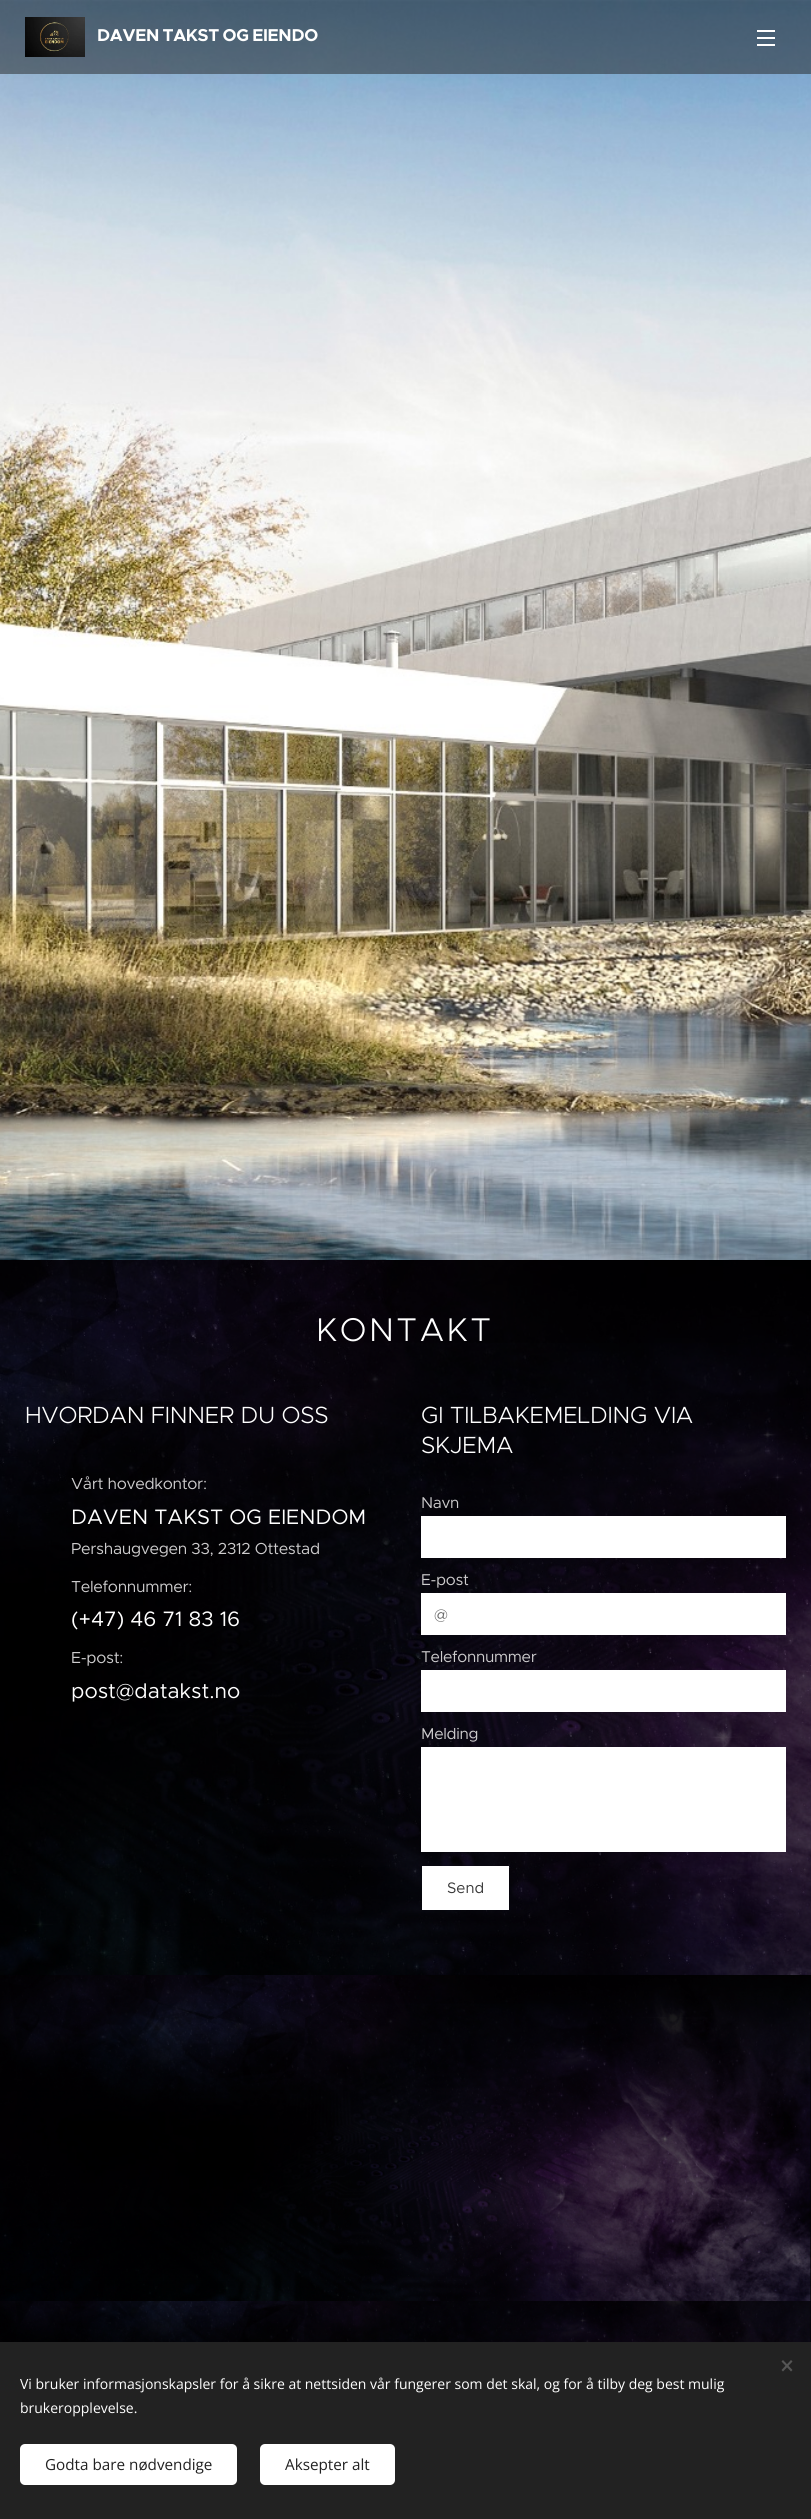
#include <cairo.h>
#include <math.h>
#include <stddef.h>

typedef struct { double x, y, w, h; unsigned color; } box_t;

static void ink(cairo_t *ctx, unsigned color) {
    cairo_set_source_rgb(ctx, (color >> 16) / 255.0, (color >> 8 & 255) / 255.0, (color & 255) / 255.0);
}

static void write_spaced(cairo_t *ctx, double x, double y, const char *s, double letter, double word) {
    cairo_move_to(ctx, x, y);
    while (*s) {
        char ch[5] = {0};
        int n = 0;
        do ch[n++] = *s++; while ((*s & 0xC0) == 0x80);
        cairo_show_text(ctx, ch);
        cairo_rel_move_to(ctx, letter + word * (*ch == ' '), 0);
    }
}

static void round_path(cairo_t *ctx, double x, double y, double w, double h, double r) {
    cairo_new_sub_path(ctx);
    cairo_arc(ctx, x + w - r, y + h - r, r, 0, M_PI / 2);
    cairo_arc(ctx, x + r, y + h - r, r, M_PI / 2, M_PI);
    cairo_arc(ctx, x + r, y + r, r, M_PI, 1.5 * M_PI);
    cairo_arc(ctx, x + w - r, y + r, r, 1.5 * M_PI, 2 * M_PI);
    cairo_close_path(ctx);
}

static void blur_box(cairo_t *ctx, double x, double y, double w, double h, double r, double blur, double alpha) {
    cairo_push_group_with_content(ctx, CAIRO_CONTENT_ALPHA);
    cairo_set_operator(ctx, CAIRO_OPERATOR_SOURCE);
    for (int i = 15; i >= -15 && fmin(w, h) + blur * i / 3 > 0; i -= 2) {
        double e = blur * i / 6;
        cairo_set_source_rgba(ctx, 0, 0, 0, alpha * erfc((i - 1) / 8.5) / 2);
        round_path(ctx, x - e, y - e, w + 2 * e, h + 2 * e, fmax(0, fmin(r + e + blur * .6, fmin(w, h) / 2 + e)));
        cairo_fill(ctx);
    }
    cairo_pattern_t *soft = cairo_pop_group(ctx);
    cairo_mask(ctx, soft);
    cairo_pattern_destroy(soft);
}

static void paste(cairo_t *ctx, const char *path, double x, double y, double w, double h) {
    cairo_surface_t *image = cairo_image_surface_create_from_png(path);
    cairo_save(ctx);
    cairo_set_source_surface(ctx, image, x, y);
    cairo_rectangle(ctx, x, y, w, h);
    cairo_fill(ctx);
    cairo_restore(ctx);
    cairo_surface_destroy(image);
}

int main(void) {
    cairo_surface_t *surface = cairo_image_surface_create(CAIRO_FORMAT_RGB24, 811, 2519);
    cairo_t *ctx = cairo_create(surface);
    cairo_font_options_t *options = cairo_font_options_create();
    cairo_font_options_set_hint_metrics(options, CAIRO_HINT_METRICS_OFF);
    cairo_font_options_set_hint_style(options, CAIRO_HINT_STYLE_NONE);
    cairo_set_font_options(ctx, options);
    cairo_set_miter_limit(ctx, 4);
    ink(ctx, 0xFFFFFF);
    cairo_paint(ctx);
    paste(ctx, "media/2.png", 0, 0, 811, 1260);
    cairo_set_source_rgba(ctx, 0.133, 0.133, 0.133, 0.5);
    cairo_rectangle(ctx, 0, 0, 811, 74);
    cairo_fill(ctx);
    paste(ctx, "media/1.png", 25, 17, 60, 40);
    cairo_select_font_face(ctx, "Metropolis", CAIRO_FONT_SLANT_NORMAL, CAIRO_FONT_WEIGHT_BOLD);
    cairo_set_font_size(ctx, 17.25);
    ink(ctx, 0xFFFFFF);
    write_spaced(ctx, 97, 41, "DAVEN TAKST OG EIENDO", -0.3, -1);
    {
        static const box_t items[] = {
            {757, 37, 18, 2, 0xFFFFFF},
            {757, 30, 18, 2, 0xFFFFFF},
            {757, 44, 18, 2, 0xFFFFFF},
        };
        for (size_t i = 0; i < sizeof items / sizeof *items; i++) {
            ink(ctx, items[i].color);
            cairo_rectangle(ctx, items[i].x, items[i].y, items[i].w, items[i].h);
            cairo_fill(ctx);
        }
    }
    paste(ctx, "media/3.png", 0, 1260, 811, 715);
    cairo_select_font_face(ctx, "Metropolis Light", CAIRO_FONT_SLANT_NORMAL, CAIRO_FONT_WEIGHT_NORMAL);
    cairo_set_font_size(ctx, 33);
    write_spaced(ctx, 316, 1341, "KONTAKT", 2.5, 0);
    cairo_set_font_size(ctx, 23.5);
    write_spaced(ctx, 25, 1423, "HVORDAN FINNER DU OSS", -0.25, 0);
    cairo_select_font_face(ctx, "Metropolis", CAIRO_FONT_SLANT_NORMAL, CAIRO_FONT_WEIGHT_NORMAL);
    cairo_set_font_size(ctx, 16);
    ink(ctx, 0xCDCCCD);
    write_spaced(ctx, 71, 1489, "Vårt hovedkontor:", -0.3, 0);
    cairo_set_font_size(ctx, 21);
    ink(ctx, 0xFFFFFF);
    cairo_move_to(ctx, 71, 1524);
    cairo_show_text(ctx, "DAVEN TAKST OG EIENDOM");
    cairo_set_font_size(ctx, 16);
    ink(ctx, 0xCDCCCD);
    write_spaced(ctx, 71, 1554, "Pershaugvegen 33, 2312 Ottestad", -0.3, 0);
    write_spaced(ctx, 71, 1592, "Telefonnummer:", -0.3, 0);
    cairo_set_font_size(ctx, 21);
    ink(ctx, 0xFFFFFF);
    cairo_move_to(ctx, 71, 1626);
    cairo_show_text(ctx, "(+47) 46 71 83 16");
    cairo_set_font_size(ctx, 16);
    ink(ctx, 0xCDCCCD);
    write_spaced(ctx, 71, 1663, "E-post:", -0.3, 0);
    cairo_set_font_size(ctx, 21);
    ink(ctx, 0xFFFFFF);
    cairo_move_to(ctx, 71, 1698);
    cairo_show_text(ctx, "post@datakst.no");
    cairo_select_font_face(ctx, "Metropolis Light", CAIRO_FONT_SLANT_NORMAL, CAIRO_FONT_WEIGHT_NORMAL);
    cairo_set_font_size(ctx, 23.5);
    write_spaced(ctx, 421, 1423, "GI TILBAKEMELDING VIA", -0.25, 0);
    write_spaced(ctx, 421, 1453, "SKJEMA", -0.25, 0);
    cairo_select_font_face(ctx, "Metropolis", CAIRO_FONT_SLANT_NORMAL, CAIRO_FONT_WEIGHT_NORMAL);
    cairo_set_font_size(ctx, 15.75);
    ink(ctx, 0xCDCCCD);
    write_spaced(ctx, 421, 1508, "Navn", -0.3, 0);
    ink(ctx, 0xFFFFFF);
    cairo_rectangle(ctx, 421, 1516, 365, 42);
    cairo_fill(ctx);
    ink(ctx, 0xCDCCCD);
    write_spaced(ctx, 421, 1585, "E-post", -0.3, 0);
    ink(ctx, 0xFFFFFF);
    cairo_rectangle(ctx, 421, 1593, 365, 42);
    cairo_fill(ctx);
    ink(ctx, 0x666666);
    cairo_move_to(ctx, 434, 1620);
    cairo_show_text(ctx, "@");
    ink(ctx, 0xCDCCCD);
    write_spaced(ctx, 421, 1662, "Telefonnummer", -0.3, 0);
    ink(ctx, 0xFFFFFF);
    cairo_rectangle(ctx, 421, 1670, 365, 42);
    cairo_fill(ctx);
    ink(ctx, 0xCDCCCD);
    write_spaced(ctx, 421, 1739, "Melding", -0.3, 0);
    ink(ctx, 0xFFFFFF);
    cairo_rectangle(ctx, 421, 1747, 365, 105);
    cairo_fill(ctx);
    cairo_rectangle(ctx, 422, 1866, 87, 44);
    cairo_fill(ctx);
    cairo_set_font_size(ctx, 15.25);
    ink(ctx, 0x393939);
    cairo_move_to(ctx, 447, 1893);
    cairo_show_text(ctx, "Send");
    paste(ctx, "media/4.png", 0, 1975, 811, 326);
    paste(ctx, "media/5.png", 0, 2301, 811, 41);
    ink(ctx, 0x000000);
    blur_box(ctx, 0, 2342, 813, 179, 0, 12.5, 0.33);
    ink(ctx, 0x222222);
    cairo_rectangle(ctx, 0, 2342, 811, 177);
    cairo_fill(ctx);
    ink(ctx, 0x555555);
    cairo_new_path(ctx);
    cairo_move_to(ctx, 781.5, 2370);
    cairo_line_to(ctx, 791, 2360);
    cairo_line_to(ctx, 792.5, 2361.5);
    cairo_line_to(ctx, 783, 2371.5);
    cairo_close_path(ctx);
    cairo_fill(ctx);
    cairo_new_path(ctx);
    cairo_move_to(ctx, 783, 2360);
    cairo_line_to(ctx, 792.5, 2370);
    cairo_line_to(ctx, 791, 2371.5);
    cairo_line_to(ctx, 781.5, 2361.5);
    cairo_close_path(ctx);
    cairo_fill(ctx);
    cairo_select_font_face(ctx, "Open Sans", CAIRO_FONT_SLANT_NORMAL, CAIRO_FONT_WEIGHT_NORMAL);
    cairo_set_font_size(ctx, 14);
    ink(ctx, 0xFFFFFF);
    cairo_move_to(ctx, 20, 2389);
    cairo_show_text(ctx, "Vi bruker informasjonskapsler for å sikre at nettsiden vår fungerer som det skal, og for å tilby deg best mulig");
    cairo_move_to(ctx, 20, 2413);
    cairo_show_text(ctx, "brukeropplevelse.");
    round_path(ctx, 20, 2444, 217, 41, 5);
    cairo_fill(ctx);
    cairo_set_font_size(ctx, 15.25);
    ink(ctx, 0x222222);
    cairo_move_to(ctx, 45, 2470);
    cairo_show_text(ctx, "Godta bare nødvendige");
    ink(ctx, 0xFFFFFF);
    round_path(ctx, 260, 2444, 135, 41, 5);
    cairo_fill(ctx);
    ink(ctx, 0x222222);
    cairo_move_to(ctx, 285, 2470);
    cairo_show_text(ctx, "Aksepter alt");
    cairo_surface_write_to_png(surface, "image.png");
    cairo_font_options_destroy(options);
    cairo_destroy(ctx);
    cairo_surface_destroy(surface);
    return 0;
}
